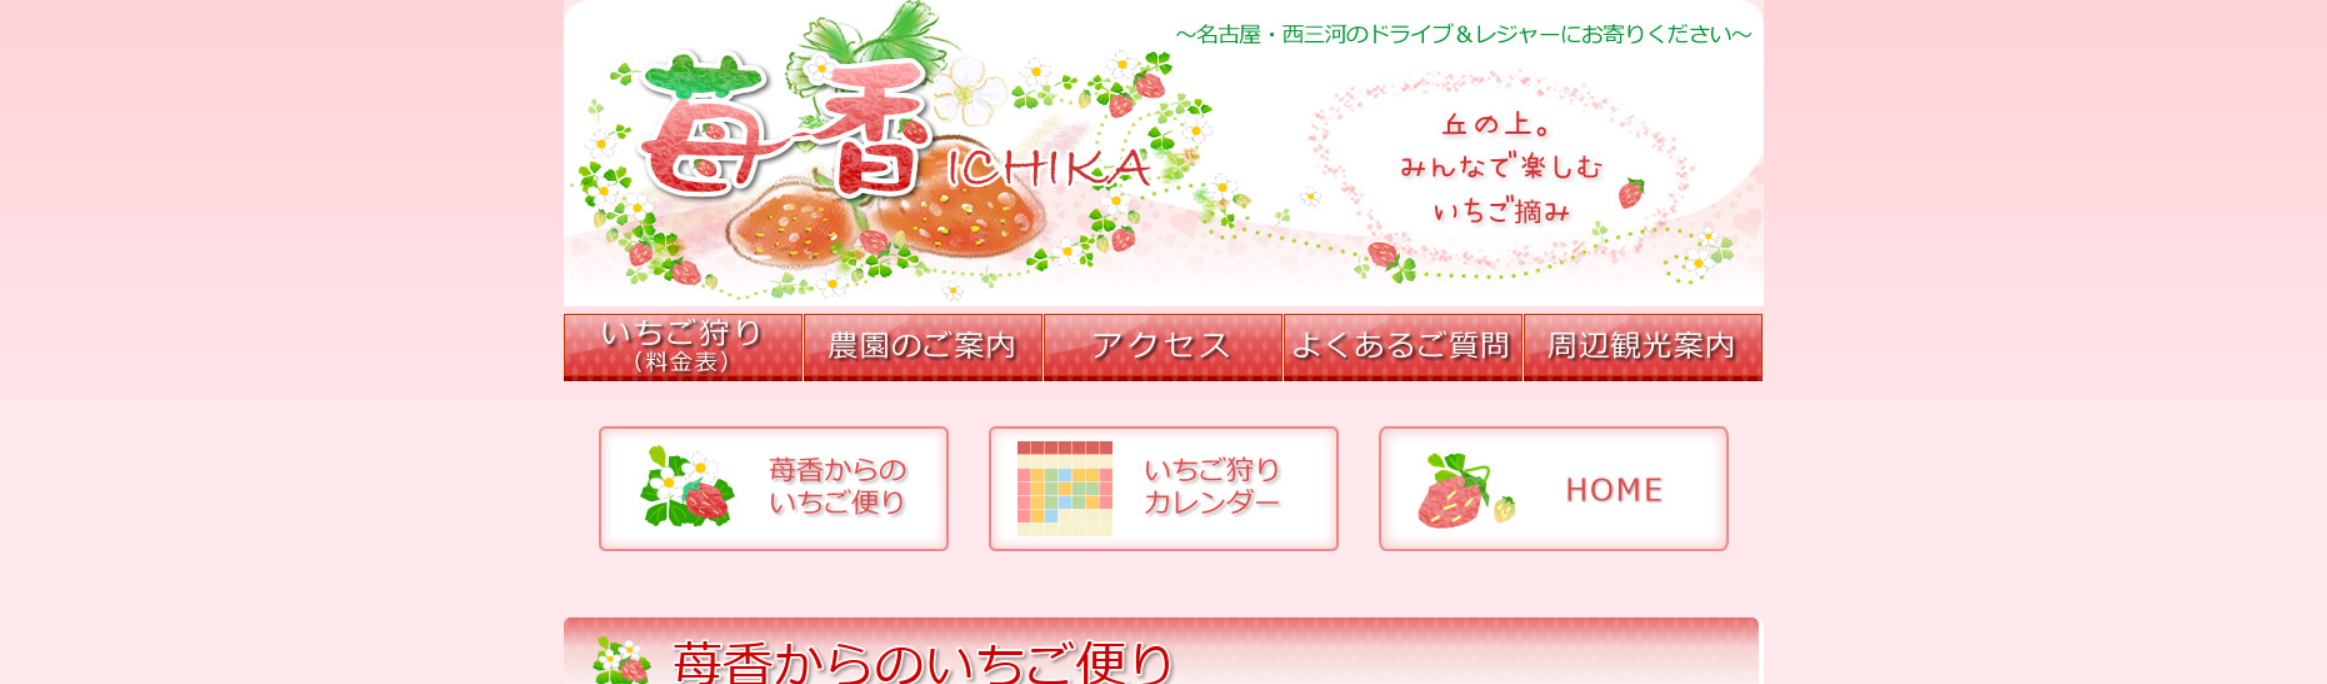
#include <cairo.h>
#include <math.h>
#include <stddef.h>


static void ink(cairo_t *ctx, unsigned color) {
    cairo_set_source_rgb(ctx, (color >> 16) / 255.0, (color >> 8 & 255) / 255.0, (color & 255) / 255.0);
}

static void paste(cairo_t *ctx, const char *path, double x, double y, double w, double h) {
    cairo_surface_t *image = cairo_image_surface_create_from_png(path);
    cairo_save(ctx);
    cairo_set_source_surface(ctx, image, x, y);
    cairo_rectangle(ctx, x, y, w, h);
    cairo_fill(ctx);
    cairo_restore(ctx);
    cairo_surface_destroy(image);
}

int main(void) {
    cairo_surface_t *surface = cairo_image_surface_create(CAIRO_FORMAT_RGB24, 2327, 684);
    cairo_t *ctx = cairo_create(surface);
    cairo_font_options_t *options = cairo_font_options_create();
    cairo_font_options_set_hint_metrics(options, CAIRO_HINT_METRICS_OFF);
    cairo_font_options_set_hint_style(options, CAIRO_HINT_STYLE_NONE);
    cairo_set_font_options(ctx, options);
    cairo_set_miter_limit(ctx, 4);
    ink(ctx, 0xFFE8EB);
    cairo_paint(ctx);
    paste(ctx, "media/1.png", 0, 0, 2327, 400);
    paste(ctx, "media/2.png", 563, 0, 1201, 307);
    paste(ctx, "media/3.png", 563, 313, 241, 69);
    paste(ctx, "media/4.png", 803, 313, 241, 69);
    paste(ctx, "media/5.png", 1043, 313, 241, 69);
    paste(ctx, "media/6.png", 1283, 313, 241, 69);
    paste(ctx, "media/7.png", 1523, 313, 241, 69);
    paste(ctx, "media/8.png", 598, 426, 351, 126);
    paste(ctx, "media/9.png", 988, 426, 351, 126);
    paste(ctx, "media/10.png", 1378, 426, 351, 126);
    paste(ctx, "media/11.png", 563, 617, 1201, 67);
    cairo_surface_write_to_png(surface, "image.png");
    cairo_font_options_destroy(options);
    cairo_destroy(ctx);
    cairo_surface_destroy(surface);
    return 0;
}
